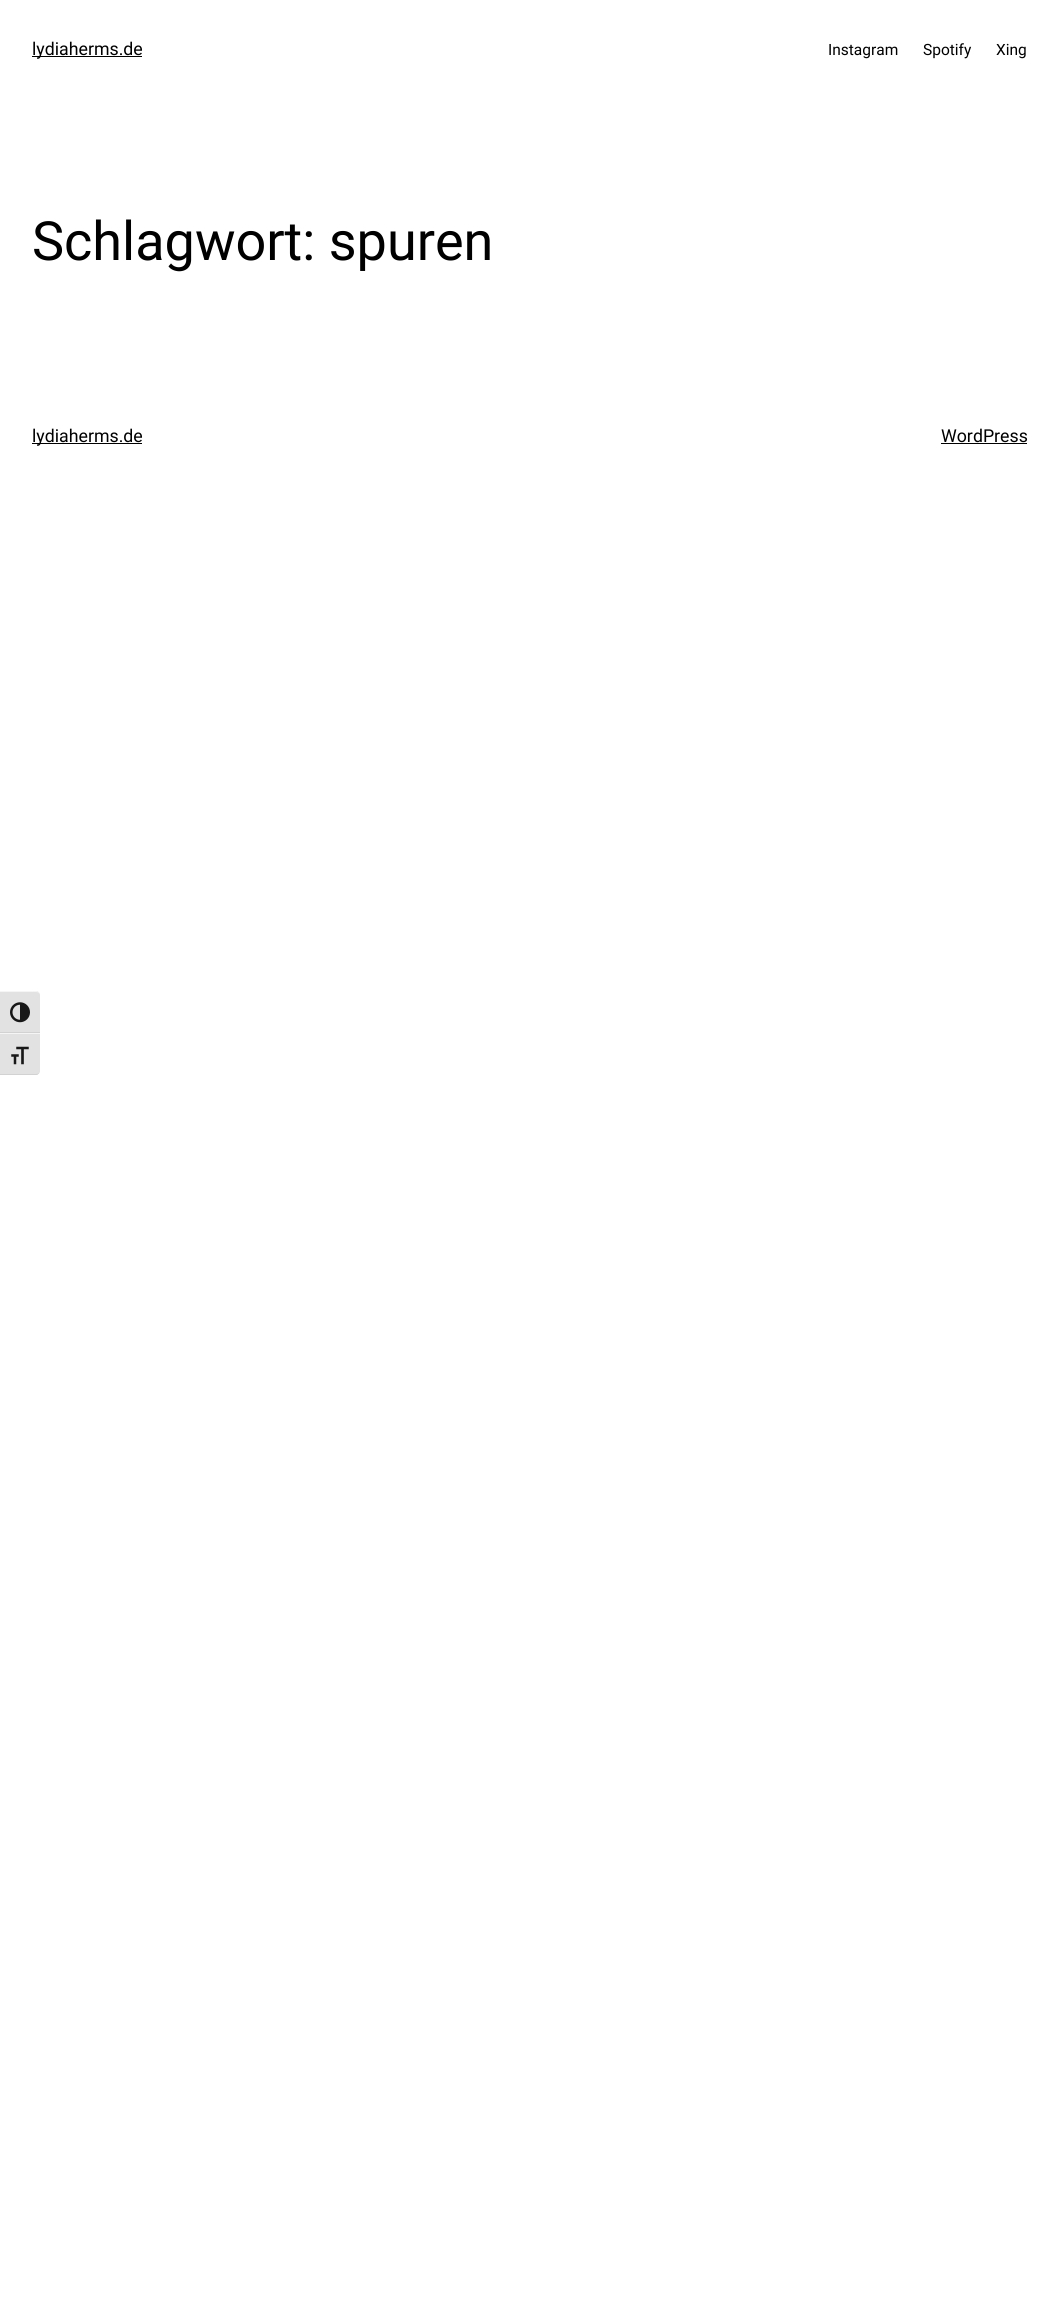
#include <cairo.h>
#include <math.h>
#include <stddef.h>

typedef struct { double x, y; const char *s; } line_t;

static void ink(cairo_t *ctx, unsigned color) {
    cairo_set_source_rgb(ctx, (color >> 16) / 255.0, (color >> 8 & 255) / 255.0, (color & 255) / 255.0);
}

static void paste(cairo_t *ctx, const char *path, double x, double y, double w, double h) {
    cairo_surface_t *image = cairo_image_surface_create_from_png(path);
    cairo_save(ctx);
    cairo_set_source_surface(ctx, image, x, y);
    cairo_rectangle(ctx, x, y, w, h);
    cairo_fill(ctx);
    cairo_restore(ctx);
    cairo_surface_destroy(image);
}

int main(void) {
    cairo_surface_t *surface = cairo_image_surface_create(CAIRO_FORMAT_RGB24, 1059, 2304);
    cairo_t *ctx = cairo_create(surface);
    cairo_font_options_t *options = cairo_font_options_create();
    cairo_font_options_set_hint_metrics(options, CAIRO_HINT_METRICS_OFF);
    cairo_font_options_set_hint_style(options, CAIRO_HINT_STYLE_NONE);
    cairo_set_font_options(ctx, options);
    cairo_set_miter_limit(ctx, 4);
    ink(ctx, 0xFFFFFF);
    cairo_paint(ctx);
    ink(ctx, 0x000000);
    cairo_rectangle(ctx, 32, 56, 110, 1);
    cairo_fill(ctx);
    cairo_select_font_face(ctx, "Roboto", CAIRO_FONT_SLANT_NORMAL, CAIRO_FONT_WEIGHT_NORMAL);
    cairo_set_font_size(ctx, 17.75);
    cairo_move_to(ctx, 32, 55);
    cairo_show_text(ctx, "lydiaherms.de");
    cairo_set_font_size(ctx, 15.5);
    {
        static const line_t items[] = {
            {828, 55, "Instagram"},
            {923, 55, "Spotify"},
            {996, 55, "Xing"},
        };
        for (size_t i = 0; i < sizeof items / sizeof *items; i++) {
            cairo_move_to(ctx, items[i].x, items[i].y);
            cairo_show_text(ctx, items[i].s);
        }
    }
    cairo_set_font_size(ctx, 54);
    cairo_move_to(ctx, 32, 260);
    cairo_show_text(ctx, "Schlagwort: spuren");
    cairo_rectangle(ctx, 32, 443, 110, 1);
    cairo_fill(ctx);
    cairo_set_font_size(ctx, 17.75);
    cairo_move_to(ctx, 32, 442);
    cairo_show_text(ctx, "lydiaherms.de");
    cairo_move_to(ctx, 941, 442);
    cairo_show_text(ctx, "WordPress");
    cairo_rectangle(ctx, 941, 443, 86, 1);
    cairo_fill(ctx);
    ink(ctx, 0xE2E2E2);
    cairo_new_path(ctx);
    cairo_move_to(ctx, 0, 991);
    cairo_line_to(ctx, 36, 991);
    cairo_curve_to(ctx, 38, 991, 40, 993, 40, 995);
    cairo_line_to(ctx, 40, 1033);
    cairo_line_to(ctx, 0, 1033);
    cairo_close_path(ctx);
    cairo_fill(ctx);
    ink(ctx, 0xF5F5F5);
    cairo_new_path(ctx);
    cairo_move_to(ctx, 0, 991);
    cairo_line_to(ctx, 0, 992);
    cairo_line_to(ctx, 36, 992);
    cairo_curve_to(ctx, 38, 992, 40, 993, 40, 995);
    cairo_curve_to(ctx, 40, 993, 38, 991, 36, 991);
    cairo_close_path(ctx);
    cairo_fill(ctx);
    ink(ctx, 0xD2D2D2);
    cairo_rectangle(ctx, 0, 1032, 40, 1);
    cairo_fill(ctx);
    paste(ctx, "media/1.png", 10, 1002, 20, 21);
    ink(ctx, 0xE2E2E2);
    cairo_new_path(ctx);
    cairo_move_to(ctx, 0, 1033);
    cairo_line_to(ctx, 40, 1033);
    cairo_line_to(ctx, 40, 1071);
    cairo_curve_to(ctx, 40, 1073, 38, 1075, 36, 1075);
    cairo_line_to(ctx, 0, 1075);
    cairo_close_path(ctx);
    cairo_fill(ctx);
    ink(ctx, 0xF5F5F5);
    cairo_rectangle(ctx, 0, 1033, 40, 1);
    cairo_fill(ctx);
    ink(ctx, 0xD2D2D2);
    cairo_new_path(ctx);
    cairo_move_to(ctx, 0, 1074);
    cairo_line_to(ctx, 0, 1075);
    cairo_line_to(ctx, 36, 1075);
    cairo_curve_to(ctx, 38, 1075, 40, 1073, 40, 1071);
    cairo_curve_to(ctx, 40, 1073, 38, 1074, 36, 1074);
    cairo_close_path(ctx);
    cairo_fill(ctx);
    paste(ctx, "media/2.png", 11, 1046, 18, 19);
    cairo_surface_write_to_png(surface, "image.png");
    cairo_font_options_destroy(options);
    cairo_destroy(ctx);
    cairo_surface_destroy(surface);
    return 0;
}
